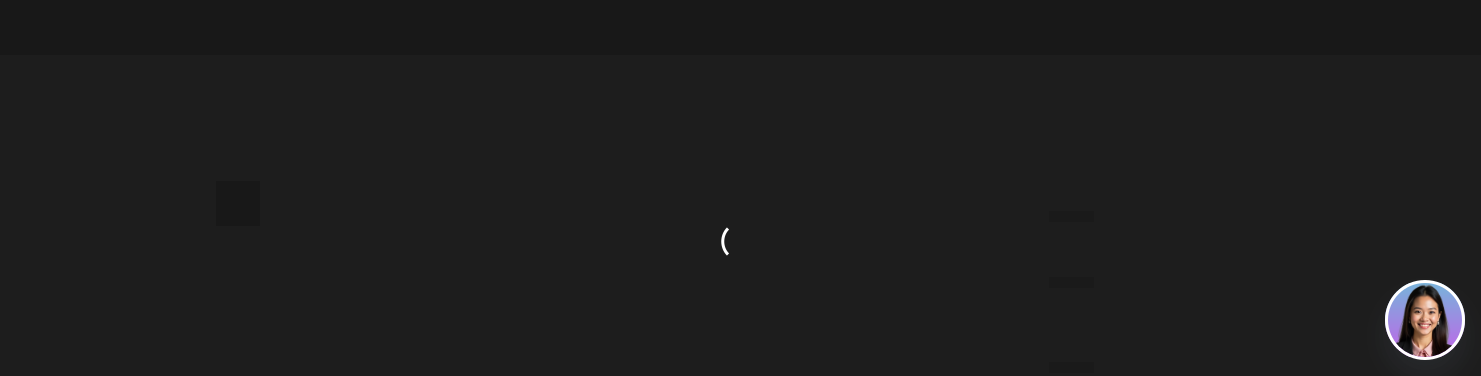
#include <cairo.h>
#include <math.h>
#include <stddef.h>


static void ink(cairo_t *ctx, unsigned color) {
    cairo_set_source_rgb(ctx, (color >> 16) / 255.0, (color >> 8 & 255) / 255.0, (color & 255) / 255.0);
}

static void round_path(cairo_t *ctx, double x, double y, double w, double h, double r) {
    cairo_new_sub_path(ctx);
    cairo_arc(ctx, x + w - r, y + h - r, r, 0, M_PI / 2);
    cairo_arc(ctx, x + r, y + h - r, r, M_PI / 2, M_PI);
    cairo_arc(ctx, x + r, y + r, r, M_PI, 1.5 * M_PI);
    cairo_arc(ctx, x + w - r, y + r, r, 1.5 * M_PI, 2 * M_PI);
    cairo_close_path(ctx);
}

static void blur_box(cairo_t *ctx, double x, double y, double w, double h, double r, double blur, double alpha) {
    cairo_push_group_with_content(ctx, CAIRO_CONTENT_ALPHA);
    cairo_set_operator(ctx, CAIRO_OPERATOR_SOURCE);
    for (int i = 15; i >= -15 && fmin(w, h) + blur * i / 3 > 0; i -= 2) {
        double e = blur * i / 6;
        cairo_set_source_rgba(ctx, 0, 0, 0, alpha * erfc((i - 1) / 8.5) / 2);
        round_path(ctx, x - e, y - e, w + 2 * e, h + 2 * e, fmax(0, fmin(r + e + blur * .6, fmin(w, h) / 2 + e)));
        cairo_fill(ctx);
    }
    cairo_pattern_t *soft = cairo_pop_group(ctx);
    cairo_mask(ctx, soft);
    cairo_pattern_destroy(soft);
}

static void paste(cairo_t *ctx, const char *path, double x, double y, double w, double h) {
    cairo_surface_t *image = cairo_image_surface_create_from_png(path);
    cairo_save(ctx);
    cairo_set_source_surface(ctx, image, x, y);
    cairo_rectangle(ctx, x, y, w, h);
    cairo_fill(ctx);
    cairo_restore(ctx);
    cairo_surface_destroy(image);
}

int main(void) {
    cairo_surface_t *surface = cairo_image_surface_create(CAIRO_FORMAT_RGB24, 1481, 376);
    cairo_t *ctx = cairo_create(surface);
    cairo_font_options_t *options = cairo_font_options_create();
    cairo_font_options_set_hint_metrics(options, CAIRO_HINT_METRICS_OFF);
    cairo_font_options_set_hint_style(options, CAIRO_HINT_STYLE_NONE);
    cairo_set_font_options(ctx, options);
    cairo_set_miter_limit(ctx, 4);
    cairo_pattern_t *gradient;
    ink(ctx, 0x1D1D1D);
    cairo_paint(ctx);
    ink(ctx, 0x181818);
    cairo_rectangle(ctx, 0, 0, 1481, 55);
    cairo_fill(ctx);
    cairo_rectangle(ctx, 216, 181, 44, 45);
    cairo_fill(ctx);
    gradient = cairo_pattern_create_linear(1072, 211, 1072, 256);
    cairo_pattern_add_color_stop_rgba(gradient, 0, 0.102, 0.102, 0.102, 1);
    cairo_pattern_add_color_stop_rgba(gradient, 1, 0.11, 0.11, 0.11, 1);
    cairo_set_source(ctx, gradient);
    cairo_pattern_destroy(gradient);
    cairo_rectangle(ctx, 1049, 211, 45, 11);
    cairo_fill(ctx);
    gradient = cairo_pattern_create_linear(1072, 277, 1072, 322);
    cairo_pattern_add_color_stop_rgba(gradient, 0, 0.102, 0.102, 0.102, 1);
    cairo_pattern_add_color_stop_rgba(gradient, 1, 0.11, 0.11, 0.11, 1);
    cairo_set_source(ctx, gradient);
    cairo_pattern_destroy(gradient);
    cairo_rectangle(ctx, 1049, 277, 45, 11);
    cairo_fill(ctx);
    gradient = cairo_pattern_create_linear(1072, 362, 1072, 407);
    cairo_pattern_add_color_stop_rgba(gradient, 0, 0.102, 0.102, 0.102, 1);
    cairo_pattern_add_color_stop_rgba(gradient, 1, 0.11, 0.11, 0.11, 1);
    cairo_set_source(ctx, gradient);
    cairo_pattern_destroy(gradient);
    cairo_rectangle(ctx, 1049, 362, 45, 11);
    cairo_fill(ctx);
    cairo_new_path(ctx);
    cairo_move_to(ctx, 728, 254.5);
    cairo_curve_to(ctx, 721, 247.5, 721, 235.5, 728, 228.5);
    ink(ctx, 0xFFFFFF);
    cairo_set_line_width(ctx, 3);
    cairo_stroke(ctx);
    ink(ctx, 0x545F6F);
    blur_box(ctx, 1385, 296, 80, 80, 40, 12, 0.16);
    cairo_save(ctx);
    round_path(ctx, 1385, 280, 80, 80, 40);
    cairo_clip(ctx);
    gradient = cairo_pattern_create_linear(1425, 283, 1425, 357);
    cairo_pattern_add_color_stop_rgba(gradient, 0, 0.471, 0.702, 0.855, 1);
    cairo_pattern_add_color_stop_rgba(gradient, 1, 0.757, 0.388, 0.914, 1);
    cairo_set_source(ctx, gradient);
    cairo_pattern_destroy(gradient);
    cairo_rectangle(ctx, 1385, 283, 80, 74);
    cairo_fill(ctx);
    cairo_restore(ctx);
    cairo_arc(ctx, 1425, 320, 38.5, 0, 2 * M_PI);
    ink(ctx, 0xFFFFFF);
    cairo_stroke(ctx);
    paste(ctx, "media/1.png", 1395, 284, 57, 73);
    cairo_surface_write_to_png(surface, "image.png");
    cairo_font_options_destroy(options);
    cairo_destroy(ctx);
    cairo_surface_destroy(surface);
    return 0;
}
